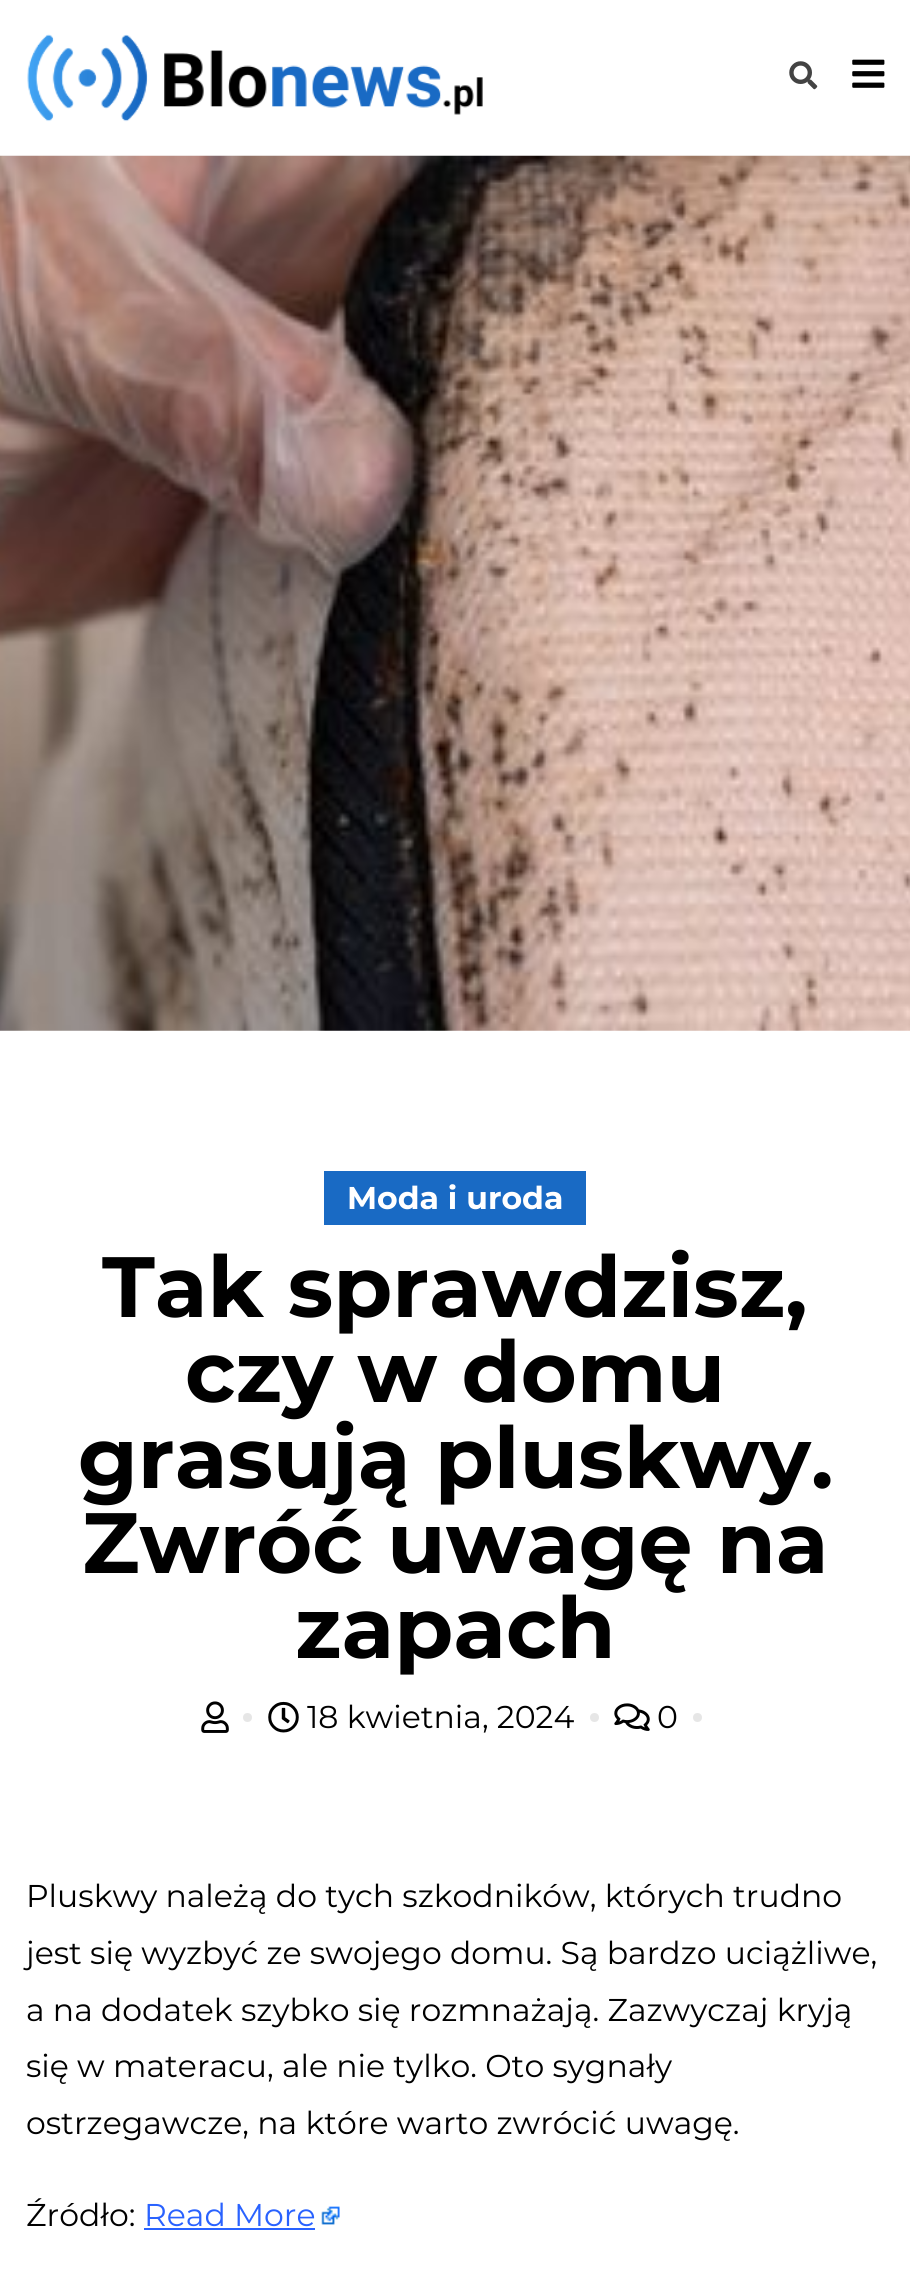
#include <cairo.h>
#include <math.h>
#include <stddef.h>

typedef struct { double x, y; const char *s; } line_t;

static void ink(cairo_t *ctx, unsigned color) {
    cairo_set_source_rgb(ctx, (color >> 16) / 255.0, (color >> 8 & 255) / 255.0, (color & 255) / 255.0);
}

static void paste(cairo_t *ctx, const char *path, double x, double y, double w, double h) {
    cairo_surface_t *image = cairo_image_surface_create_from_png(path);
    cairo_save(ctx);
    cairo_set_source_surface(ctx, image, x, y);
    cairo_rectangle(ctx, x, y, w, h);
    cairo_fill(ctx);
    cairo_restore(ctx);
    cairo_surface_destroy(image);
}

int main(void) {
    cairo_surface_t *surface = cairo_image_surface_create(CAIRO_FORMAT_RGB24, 910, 2275);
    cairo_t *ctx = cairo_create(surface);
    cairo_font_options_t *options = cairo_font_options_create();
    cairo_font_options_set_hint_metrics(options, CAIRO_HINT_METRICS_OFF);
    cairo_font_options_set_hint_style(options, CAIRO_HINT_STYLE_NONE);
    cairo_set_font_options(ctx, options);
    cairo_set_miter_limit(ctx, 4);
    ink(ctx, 0xFFFFFF);
    cairo_paint(ctx);
    paste(ctx, "media/1.png", 27, 34, 456, 88);
    paste(ctx, "media/2.png", 789, 61, 29, 29);
    paste(ctx, "media/3.png", 852, 59, 33, 29);
    paste(ctx, "media/4.png", 0, 155, 910, 876);
    ink(ctx, 0x196AC4);
    cairo_rectangle(ctx, 324, 1171, 262, 54);
    cairo_fill(ctx);
    cairo_select_font_face(ctx, "Montserrat", CAIRO_FONT_SLANT_NORMAL, CAIRO_FONT_WEIGHT_BOLD);
    cairo_set_font_size(ctx, 31.5);
    ink(ctx, 0xFFFFFF);
    cairo_move_to(ctx, 347, 1209);
    cairo_show_text(ctx, "Moda i uroda");
    cairo_set_font_size(ctx, 85.5);
    ink(ctx, 0x000000);
    {
        static const line_t items[] = {
            {102, 1317, "Tak sprawdzisz,"},
            {185, 1402, "czy w domu"},
            {78, 1488, "grasują pluskwy."},
            {82, 1573, "Zwróć uwagę na"},
            {295, 1658, "zapach"},
        };
        for (size_t i = 0; i < sizeof items / sizeof *items; i++) {
            cairo_move_to(ctx, items[i].x, items[i].y);
            cairo_show_text(ctx, items[i].s);
        }
    }
    paste(ctx, "media/5.png", 201, 1701, 28, 32);
    ink(ctx, 0xE6E6E6);
    cairo_arc(ctx, 247.5, 1717.5, 4.5, 0, 2 * M_PI);
    cairo_fill(ctx);
    paste(ctx, "media/6.png", 268, 1701, 31, 32);
    cairo_select_font_face(ctx, "Montserrat", CAIRO_FONT_SLANT_NORMAL, CAIRO_FONT_WEIGHT_NORMAL);
    cairo_set_font_size(ctx, 31.5);
    ink(ctx, 0x000000);
    cairo_move_to(ctx, 307, 1728);
    cairo_show_text(ctx, "18 kwietnia, 2024");
    ink(ctx, 0xE6E6E6);
    cairo_new_path(ctx);
    cairo_arc(ctx, 594.5, 1717.5, 4.5, 0, 2 * M_PI);
    cairo_fill(ctx);
    paste(ctx, "media/7.png", 614, 1703, 36, 28);
    ink(ctx, 0x000000);
    cairo_move_to(ctx, 657, 1728);
    cairo_show_text(ctx, "0");
    ink(ctx, 0xE6E6E6);
    cairo_new_path(ctx);
    cairo_arc(ctx, 697.5, 1717.5, 4.5, 0, 2 * M_PI);
    cairo_fill(ctx);
    ink(ctx, 0x000000);
    {
        static const line_t items[] = {
            {26, 1907, "Pluskwy należą do tych szkodników, których trudno"},
            {26, 1964, "jest się wyzbyć ze swojego domu. Są bardzo uciążliwe,"},
            {26, 2021, "a na dodatek szybko się rozmnażają. Zazwyczaj kryją"},
            {26, 2077, "się w materacu, ale nie tylko. Oto sygnały"},
            {26, 2134, "ostrzegawcze, na które warto zwrócić uwagę."},
            {26, 2226, "Źródło:"},
        };
        for (size_t i = 0; i < sizeof items / sizeof *items; i++) {
            cairo_move_to(ctx, items[i].x, items[i].y);
            cairo_show_text(ctx, items[i].s);
        }
    }
    ink(ctx, 0x2962FF);
    cairo_move_to(ctx, 144, 2226);
    cairo_show_text(ctx, "Read More");
    cairo_rectangle(ctx, 144, 2228, 171, 2);
    cairo_fill(ctx);
    paste(ctx, "media/8.png", 321, 2206, 19, 19);
    cairo_surface_write_to_png(surface, "image.png");
    cairo_font_options_destroy(options);
    cairo_destroy(ctx);
    cairo_surface_destroy(surface);
    return 0;
}
